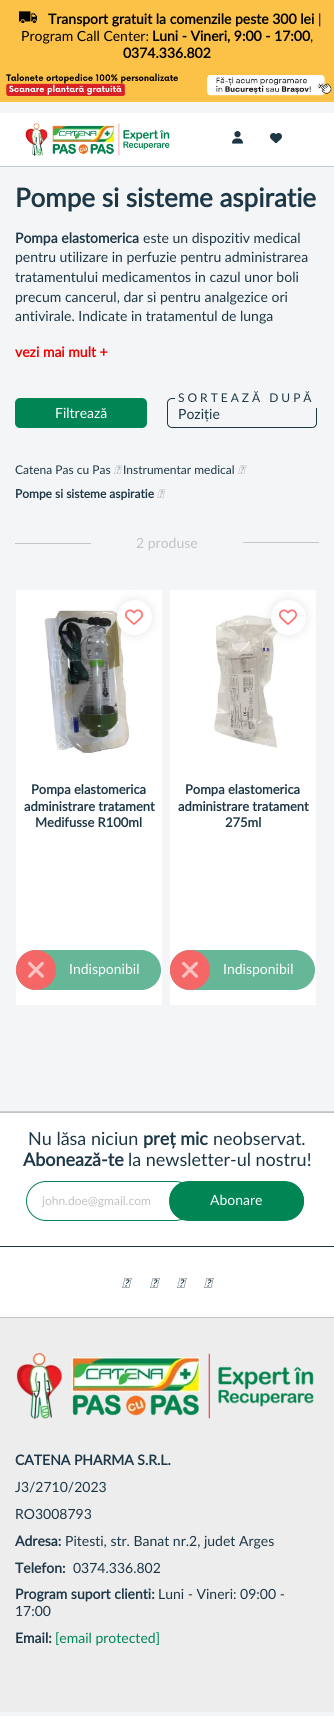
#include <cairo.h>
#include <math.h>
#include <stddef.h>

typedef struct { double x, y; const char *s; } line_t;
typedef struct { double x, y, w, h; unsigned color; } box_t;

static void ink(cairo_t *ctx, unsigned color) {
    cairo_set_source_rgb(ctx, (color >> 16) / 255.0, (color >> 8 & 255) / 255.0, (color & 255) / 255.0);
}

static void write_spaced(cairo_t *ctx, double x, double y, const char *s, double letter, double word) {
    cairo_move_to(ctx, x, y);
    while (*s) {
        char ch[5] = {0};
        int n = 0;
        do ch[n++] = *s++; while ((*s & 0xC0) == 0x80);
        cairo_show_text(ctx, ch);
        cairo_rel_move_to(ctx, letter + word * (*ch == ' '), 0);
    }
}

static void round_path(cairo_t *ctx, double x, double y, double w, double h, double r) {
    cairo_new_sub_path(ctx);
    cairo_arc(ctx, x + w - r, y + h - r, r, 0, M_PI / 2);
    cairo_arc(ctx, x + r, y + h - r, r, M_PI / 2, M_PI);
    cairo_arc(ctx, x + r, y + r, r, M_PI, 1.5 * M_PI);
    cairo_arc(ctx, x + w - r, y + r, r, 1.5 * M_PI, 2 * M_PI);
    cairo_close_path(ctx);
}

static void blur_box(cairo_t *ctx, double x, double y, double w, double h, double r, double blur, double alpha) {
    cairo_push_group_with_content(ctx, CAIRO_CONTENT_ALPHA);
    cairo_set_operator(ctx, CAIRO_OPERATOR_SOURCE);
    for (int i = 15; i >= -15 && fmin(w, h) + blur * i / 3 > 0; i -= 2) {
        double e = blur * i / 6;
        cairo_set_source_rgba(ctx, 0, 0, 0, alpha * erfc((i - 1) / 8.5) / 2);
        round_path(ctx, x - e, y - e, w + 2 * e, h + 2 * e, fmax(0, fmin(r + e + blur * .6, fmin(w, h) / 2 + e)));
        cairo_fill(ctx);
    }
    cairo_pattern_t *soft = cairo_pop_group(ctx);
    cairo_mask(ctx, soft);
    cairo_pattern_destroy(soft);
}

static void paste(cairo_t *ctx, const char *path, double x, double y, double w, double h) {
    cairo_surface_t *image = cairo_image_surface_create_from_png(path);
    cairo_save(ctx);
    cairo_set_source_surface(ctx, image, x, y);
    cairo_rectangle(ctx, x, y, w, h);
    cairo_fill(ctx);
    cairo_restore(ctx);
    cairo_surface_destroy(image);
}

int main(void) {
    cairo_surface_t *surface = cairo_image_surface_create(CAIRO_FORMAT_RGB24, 334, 1716);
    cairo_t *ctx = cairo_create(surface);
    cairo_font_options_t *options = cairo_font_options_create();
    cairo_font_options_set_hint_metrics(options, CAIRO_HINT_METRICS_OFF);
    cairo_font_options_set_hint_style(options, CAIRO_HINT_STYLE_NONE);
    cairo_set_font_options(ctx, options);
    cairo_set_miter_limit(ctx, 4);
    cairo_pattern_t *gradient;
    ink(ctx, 0xF3F5F6);
    cairo_paint(ctx);
    ink(ctx, 0xFCC248);
    cairo_rectangle(ctx, 0, 0, 334, 102);
    cairo_fill(ctx);
    paste(ctx, "media/1.png", 19, 11, 18, 12);
    cairo_select_font_face(ctx, "Lato", CAIRO_FONT_SLANT_NORMAL, CAIRO_FONT_WEIGHT_BOLD);
    cairo_set_font_size(ctx, 14);
    ink(ctx, 0x000000);
    cairo_move_to(ctx, 48, 24);
    cairo_show_text(ctx, "Transport gratuit la comenzile peste 300 lei");
    cairo_select_font_face(ctx, "Lato", CAIRO_FONT_SLANT_NORMAL, CAIRO_FONT_WEIGHT_NORMAL);
    cairo_move_to(ctx, 318, 24);
    cairo_show_text(ctx, "|");
    cairo_move_to(ctx, 21, 41);
    cairo_show_text(ctx, "Program Call Center:");
    cairo_select_font_face(ctx, "Lato", CAIRO_FONT_SLANT_NORMAL, CAIRO_FONT_WEIGHT_BOLD);
    cairo_move_to(ctx, 152, 41);
    cairo_show_text(ctx, "Luni - Vineri, 9:00 - 17:00");
    cairo_select_font_face(ctx, "Lato", CAIRO_FONT_SLANT_NORMAL, CAIRO_FONT_WEIGHT_NORMAL);
    cairo_move_to(ctx, 310, 41);
    cairo_show_text(ctx, ",");
    cairo_select_font_face(ctx, "Lato", CAIRO_FONT_SLANT_NORMAL, CAIRO_FONT_WEIGHT_BOLD);
    cairo_move_to(ctx, 123, 58);
    cairo_show_text(ctx, "0374.336.802");
    paste(ctx, "media/2.png", 6, 73, 326, 23);
    ink(ctx, 0xBFC9CF);
    cairo_rectangle(ctx, 0, 166, 334, 1);
    cairo_fill(ctx);
    ink(ctx, 0xFFFFFF);
    cairo_rectangle(ctx, 0, 113, 334, 53);
    cairo_fill(ctx);
    paste(ctx, "media/3.png", 25, 123, 145, 33);
    paste(ctx, "media/4.png", 232, 131, 11, 13);
    paste(ctx, "media/5.png", 270, 133, 12, 11);
    cairo_set_font_size(ctx, 26);
    ink(ctx, 0x1E3747);
    cairo_move_to(ctx, 15, 207);
    cairo_show_text(ctx, "Pompe si sisteme aspiratie");
    cairo_set_font_size(ctx, 14);
    cairo_move_to(ctx, 15, 243);
    cairo_show_text(ctx, "Pompa elastomerica");
    cairo_select_font_face(ctx, "Lato", CAIRO_FONT_SLANT_NORMAL, CAIRO_FONT_WEIGHT_NORMAL);
    {
        static const line_t items[] = {
            {143, 243, "este un dispozitiv medical"},
            {15, 262, "pentru utilizare in perfuzie pentru administrarea"},
            {15, 282, "tratamentului medicamentos in cazul unor boli"},
            {15, 302, "precum cancerul, dar si pentru analgezice ori"},
            {15, 321, "antivirale. Indicate in tratamentul de lunga"},
        };
        for (size_t i = 0; i < sizeof items / sizeof *items; i++) {
            cairo_move_to(ctx, items[i].x, items[i].y);
            cairo_show_text(ctx, items[i].s);
        }
    }
    cairo_select_font_face(ctx, "Lato", CAIRO_FONT_SLANT_NORMAL, CAIRO_FONT_WEIGHT_BOLD);
    ink(ctx, 0xEF0101);
    cairo_move_to(ctx, 15, 357);
    cairo_show_text(ctx, "vezi mai mult +");
    round_path(ctx, 167.5, 398.5, 149, 29, 4.5);
    ink(ctx, 0x1E3747);
    cairo_set_line_width(ctx, 1);
    cairo_stroke(ctx);
    ink(ctx, 0xF3F5F6);
    cairo_rectangle(ctx, 175, 398, 142, 10);
    cairo_fill(ctx);
    cairo_select_font_face(ctx, "Lato", CAIRO_FONT_SLANT_NORMAL, CAIRO_FONT_WEIGHT_NORMAL);
    cairo_set_font_size(ctx, 12);
    ink(ctx, 0x1E3747);
    write_spaced(ctx, 178, 402, "SORTEAZĂ DUPĂ", 3, 0);
    cairo_set_font_size(ctx, 14);
    cairo_move_to(ctx, 178, 419);
    cairo_show_text(ctx, "Poziție");
    ink(ctx, 0xC2C2C2);
    cairo_move_to(ctx, 136, 548);
    cairo_show_text(ctx, "2 produse");
    ink(ctx, 0xC4C4C4);
    cairo_rectangle(ctx, 243, 542, 76, 1);
    cairo_fill(ctx);
    cairo_rectangle(ctx, 15, 543, 76, 1);
    cairo_fill(ctx);
    cairo_set_font_size(ctx, 12);
    ink(ctx, 0x1E3747);
    cairo_move_to(ctx, 15, 474);
    cairo_show_text(ctx, "Catena Pas cu Pas");
    paste(ctx, "media/6.png", 114, 465, 9, 9);
    cairo_move_to(ctx, 123, 474);
    cairo_show_text(ctx, "Instrumentar medical");
    paste(ctx, "media/6.png", 238, 465, 9, 9);
    cairo_select_font_face(ctx, "Lato", CAIRO_FONT_SLANT_NORMAL, CAIRO_FONT_WEIGHT_BOLD);
    cairo_move_to(ctx, 15, 498);
    cairo_show_text(ctx, "Pompe si sisteme aspiratie");
    paste(ctx, "media/6.png", 157, 489, 9, 9);
    ink(ctx, 0xFFFFFF);
    cairo_rectangle(ctx, 16, 590, 146, 415);
    cairo_fill(ctx);
    paste(ctx, "media/7.png", 43, 610, 89, 144);
    cairo_set_font_size(ctx, 13);
    ink(ctx, 0x1E3747);
    {
        static const line_t items[] = {
            {31, 794, "Pompa elastomerica"},
            {24, 811, "administrare tratament"},
            {35, 827, "Medifusse R100ml"},
        };
        for (size_t i = 0; i < sizeof items / sizeof *items; i++) {
            cairo_move_to(ctx, items[i].x, items[i].y);
            cairo_show_text(ctx, items[i].s);
        }
    }
    ink(ctx, 0x000000);
    blur_box(ctx, 117, 600, 35, 35, 17.5, 5, 0.1);
    ink(ctx, 0xFFFFFF);
    cairo_arc(ctx, 134.5, 617.5, 17.5, 0, 2 * M_PI);
    cairo_fill(ctx);
    paste(ctx, "media/8.png", 125, 609, 18, 16);
    ink(ctx, 0x66B698);
    round_path(ctx, 16.5, 950.5, 144, 39, 19.5);
    cairo_fill_preserve(ctx);
    cairo_stroke(ctx);
    ink(ctx, 0xF56767);
    cairo_arc(ctx, 36, 970, 20, 0, 2 * M_PI);
    cairo_fill(ctx);
    paste(ctx, "media/9.png", 28, 961, 16, 17);
    cairo_select_font_face(ctx, "Lato", CAIRO_FONT_SLANT_NORMAL, CAIRO_FONT_WEIGHT_NORMAL);
    cairo_set_font_size(ctx, 14);
    ink(ctx, 0xFFFFFF);
    cairo_move_to(ctx, 69, 974);
    cairo_show_text(ctx, "Indisponibil");
    cairo_rectangle(ctx, 170, 590, 146, 415);
    cairo_fill(ctx);
    paste(ctx, "media/10.png", 214, 614, 69, 134);
    cairo_select_font_face(ctx, "Lato", CAIRO_FONT_SLANT_NORMAL, CAIRO_FONT_WEIGHT_BOLD);
    cairo_set_font_size(ctx, 13);
    ink(ctx, 0x1E3747);
    {
        static const line_t items[] = {
            {185, 794, "Pompa elastomerica"},
            {178, 811, "administrare tratament"},
            {225, 827, "275ml"},
        };
        for (size_t i = 0; i < sizeof items / sizeof *items; i++) {
            cairo_move_to(ctx, items[i].x, items[i].y);
            cairo_show_text(ctx, items[i].s);
        }
    }
    ink(ctx, 0x000000);
    blur_box(ctx, 271, 600, 35, 35, 17.5, 5, 0.1);
    ink(ctx, 0xFFFFFF);
    cairo_arc(ctx, 288.5, 617.5, 17.5, 0, 2 * M_PI);
    cairo_fill(ctx);
    paste(ctx, "media/8.png", 279, 609, 18, 16);
    ink(ctx, 0x66B698);
    round_path(ctx, 170.5, 950.5, 144, 39, 19.5);
    cairo_fill_preserve(ctx);
    cairo_stroke(ctx);
    ink(ctx, 0xF56767);
    cairo_arc(ctx, 190, 970, 20, 0, 2 * M_PI);
    cairo_fill(ctx);
    paste(ctx, "media/9.png", 182, 961, 16, 17);
    cairo_select_font_face(ctx, "Lato", CAIRO_FONT_SLANT_NORMAL, CAIRO_FONT_WEIGHT_NORMAL);
    cairo_set_font_size(ctx, 14);
    ink(ctx, 0xFFFFFF);
    cairo_move_to(ctx, 223, 974);
    cairo_show_text(ctx, "Indisponibil");
    ink(ctx, 0x008554);
    round_path(ctx, 15, 398, 132, 30, 5);
    cairo_fill(ctx);
    ink(ctx, 0xFFFFFF);
    cairo_move_to(ctx, 55, 418);
    cairo_show_text(ctx, "Filtrează");
    {
        static const box_t items[] = {
            {0, 1318, 334, 394, 0xEDEDED},
            {0, 1111, 334, 1, 0xCECECE},
            {0, 1113, 334, 204, 0xFFFFFF},
            {0, 1112, 334, 1, 0xC4C4C4},
            {0, 1317, 334, 1, 0xC4C4C4},
        };
        for (size_t i = 0; i < sizeof items / sizeof *items; i++) {
            ink(ctx, items[i].color);
            cairo_rectangle(ctx, items[i].x, items[i].y, items[i].w, items[i].h);
            cairo_fill(ctx);
        }
    }
    cairo_set_font_size(ctx, 18);
    ink(ctx, 0x1E3747);
    cairo_move_to(ctx, 28, 1145);
    cairo_show_text(ctx, "Nu lăsa niciun");
    cairo_select_font_face(ctx, "Lato", CAIRO_FONT_SLANT_NORMAL, CAIRO_FONT_WEIGHT_BOLD);
    cairo_move_to(ctx, 143, 1145);
    cairo_show_text(ctx, "preț mic");
    cairo_select_font_face(ctx, "Lato", CAIRO_FONT_SLANT_NORMAL, CAIRO_FONT_WEIGHT_NORMAL);
    cairo_move_to(ctx, 213, 1145);
    cairo_show_text(ctx, "neobservat.");
    cairo_select_font_face(ctx, "Lato", CAIRO_FONT_SLANT_NORMAL, CAIRO_FONT_WEIGHT_BOLD);
    cairo_move_to(ctx, 23, 1166);
    cairo_show_text(ctx, "Abonează-te");
    cairo_select_font_face(ctx, "Lato", CAIRO_FONT_SLANT_NORMAL, CAIRO_FONT_WEIGHT_NORMAL);
    cairo_move_to(ctx, 128, 1166);
    cairo_show_text(ctx, "la newsletter-ul nostru!");
    round_path(ctx, 26.5, 1181.5, 168, 39, 19.5);
    ink(ctx, 0x008554);
    cairo_stroke(ctx);
    cairo_set_font_size(ctx, 12);
    ink(ctx, 0xC2C2C2);
    cairo_move_to(ctx, 42, 1205);
    cairo_show_text(ctx, "john.doe@gmail.com");
    cairo_save(ctx);
    round_path(ctx, 169, 1181, 135, 40, 20);
    cairo_clip(ctx);
    gradient = cairo_pattern_create_linear(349, 1324, 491, 1078);
    cairo_pattern_add_color_stop_rgba(gradient, 0.5, 0, 0.522, 0.329, 1);
    cairo_pattern_add_color_stop_rgba(gradient, 0.5, 0, 0.522, 0.329, 0);
    cairo_set_source(ctx, gradient);
    cairo_pattern_destroy(gradient);
    cairo_rectangle(ctx, 170, 1182, 134, 38);
    cairo_fill(ctx);
    cairo_restore(ctx);
    round_path(ctx, 169.5, 1181.5, 134, 39, 19.5);
    ink(ctx, 0x008554);
    cairo_stroke(ctx);
    cairo_set_font_size(ctx, 14);
    ink(ctx, 0xFFFFFF);
    cairo_move_to(ctx, 210, 1205);
    cairo_show_text(ctx, "Abonare");
    ink(ctx, 0x1E3747);
    cairo_rectangle(ctx, 0, 1246, 334, 1);
    cairo_fill(ctx);
    paste(ctx, "media/11.png", 122, 1278, 10, 10);
    paste(ctx, "media/11.png", 150, 1278, 10, 10);
    paste(ctx, "media/11.png", 177, 1278, 10, 10);
    paste(ctx, "media/11.png", 204, 1278, 10, 10);
    paste(ctx, "media/12.png", 16, 1353, 298, 66);
    cairo_select_font_face(ctx, "Lato", CAIRO_FONT_SLANT_NORMAL, CAIRO_FONT_WEIGHT_BOLD);
    cairo_move_to(ctx, 15, 1465);
    cairo_show_text(ctx, "CATENA PHARMA S.R.L.");
    cairo_select_font_face(ctx, "Lato", CAIRO_FONT_SLANT_NORMAL, CAIRO_FONT_WEIGHT_NORMAL);
    cairo_move_to(ctx, 15, 1492);
    cairo_show_text(ctx, "J3/2710/2023");
    cairo_move_to(ctx, 15, 1519);
    cairo_show_text(ctx, "RO3008793");
    cairo_select_font_face(ctx, "Lato", CAIRO_FONT_SLANT_NORMAL, CAIRO_FONT_WEIGHT_BOLD);
    cairo_move_to(ctx, 15, 1546);
    cairo_show_text(ctx, "Adresa:");
    cairo_select_font_face(ctx, "Lato", CAIRO_FONT_SLANT_NORMAL, CAIRO_FONT_WEIGHT_NORMAL);
    cairo_move_to(ctx, 65, 1546);
    cairo_show_text(ctx, "Pitesti, str. Banat nr.2, judet Arges");
    cairo_select_font_face(ctx, "Lato", CAIRO_FONT_SLANT_NORMAL, CAIRO_FONT_WEIGHT_BOLD);
    cairo_move_to(ctx, 15, 1573);
    cairo_show_text(ctx, "Telefon:");
    cairo_select_font_face(ctx, "Lato", CAIRO_FONT_SLANT_NORMAL, CAIRO_FONT_WEIGHT_NORMAL);
    cairo_move_to(ctx, 73, 1573);
    cairo_show_text(ctx, "0374.336.802");
    cairo_select_font_face(ctx, "Lato", CAIRO_FONT_SLANT_NORMAL, CAIRO_FONT_WEIGHT_BOLD);
    cairo_move_to(ctx, 15, 1599);
    cairo_show_text(ctx, "Program suport clienti:");
    cairo_select_font_face(ctx, "Lato", CAIRO_FONT_SLANT_NORMAL, CAIRO_FONT_WEIGHT_NORMAL);
    cairo_move_to(ctx, 158, 1599);
    cairo_show_text(ctx, "Luni - Vineri: 09:00 -");
    cairo_move_to(ctx, 15, 1616);
    cairo_show_text(ctx, "17:00");
    cairo_select_font_face(ctx, "Lato", CAIRO_FONT_SLANT_NORMAL, CAIRO_FONT_WEIGHT_BOLD);
    cairo_move_to(ctx, 15, 1643);
    cairo_show_text(ctx, "Email:");
    cairo_select_font_face(ctx, "Lato", CAIRO_FONT_SLANT_NORMAL, CAIRO_FONT_WEIGHT_NORMAL);
    ink(ctx, 0x008554);
    cairo_move_to(ctx, 55, 1643);
    cairo_show_text(ctx, "[email protected]");
    cairo_surface_write_to_png(surface, "image.png");
    cairo_font_options_destroy(options);
    cairo_destroy(ctx);
    cairo_surface_destroy(surface);
    return 0;
}
